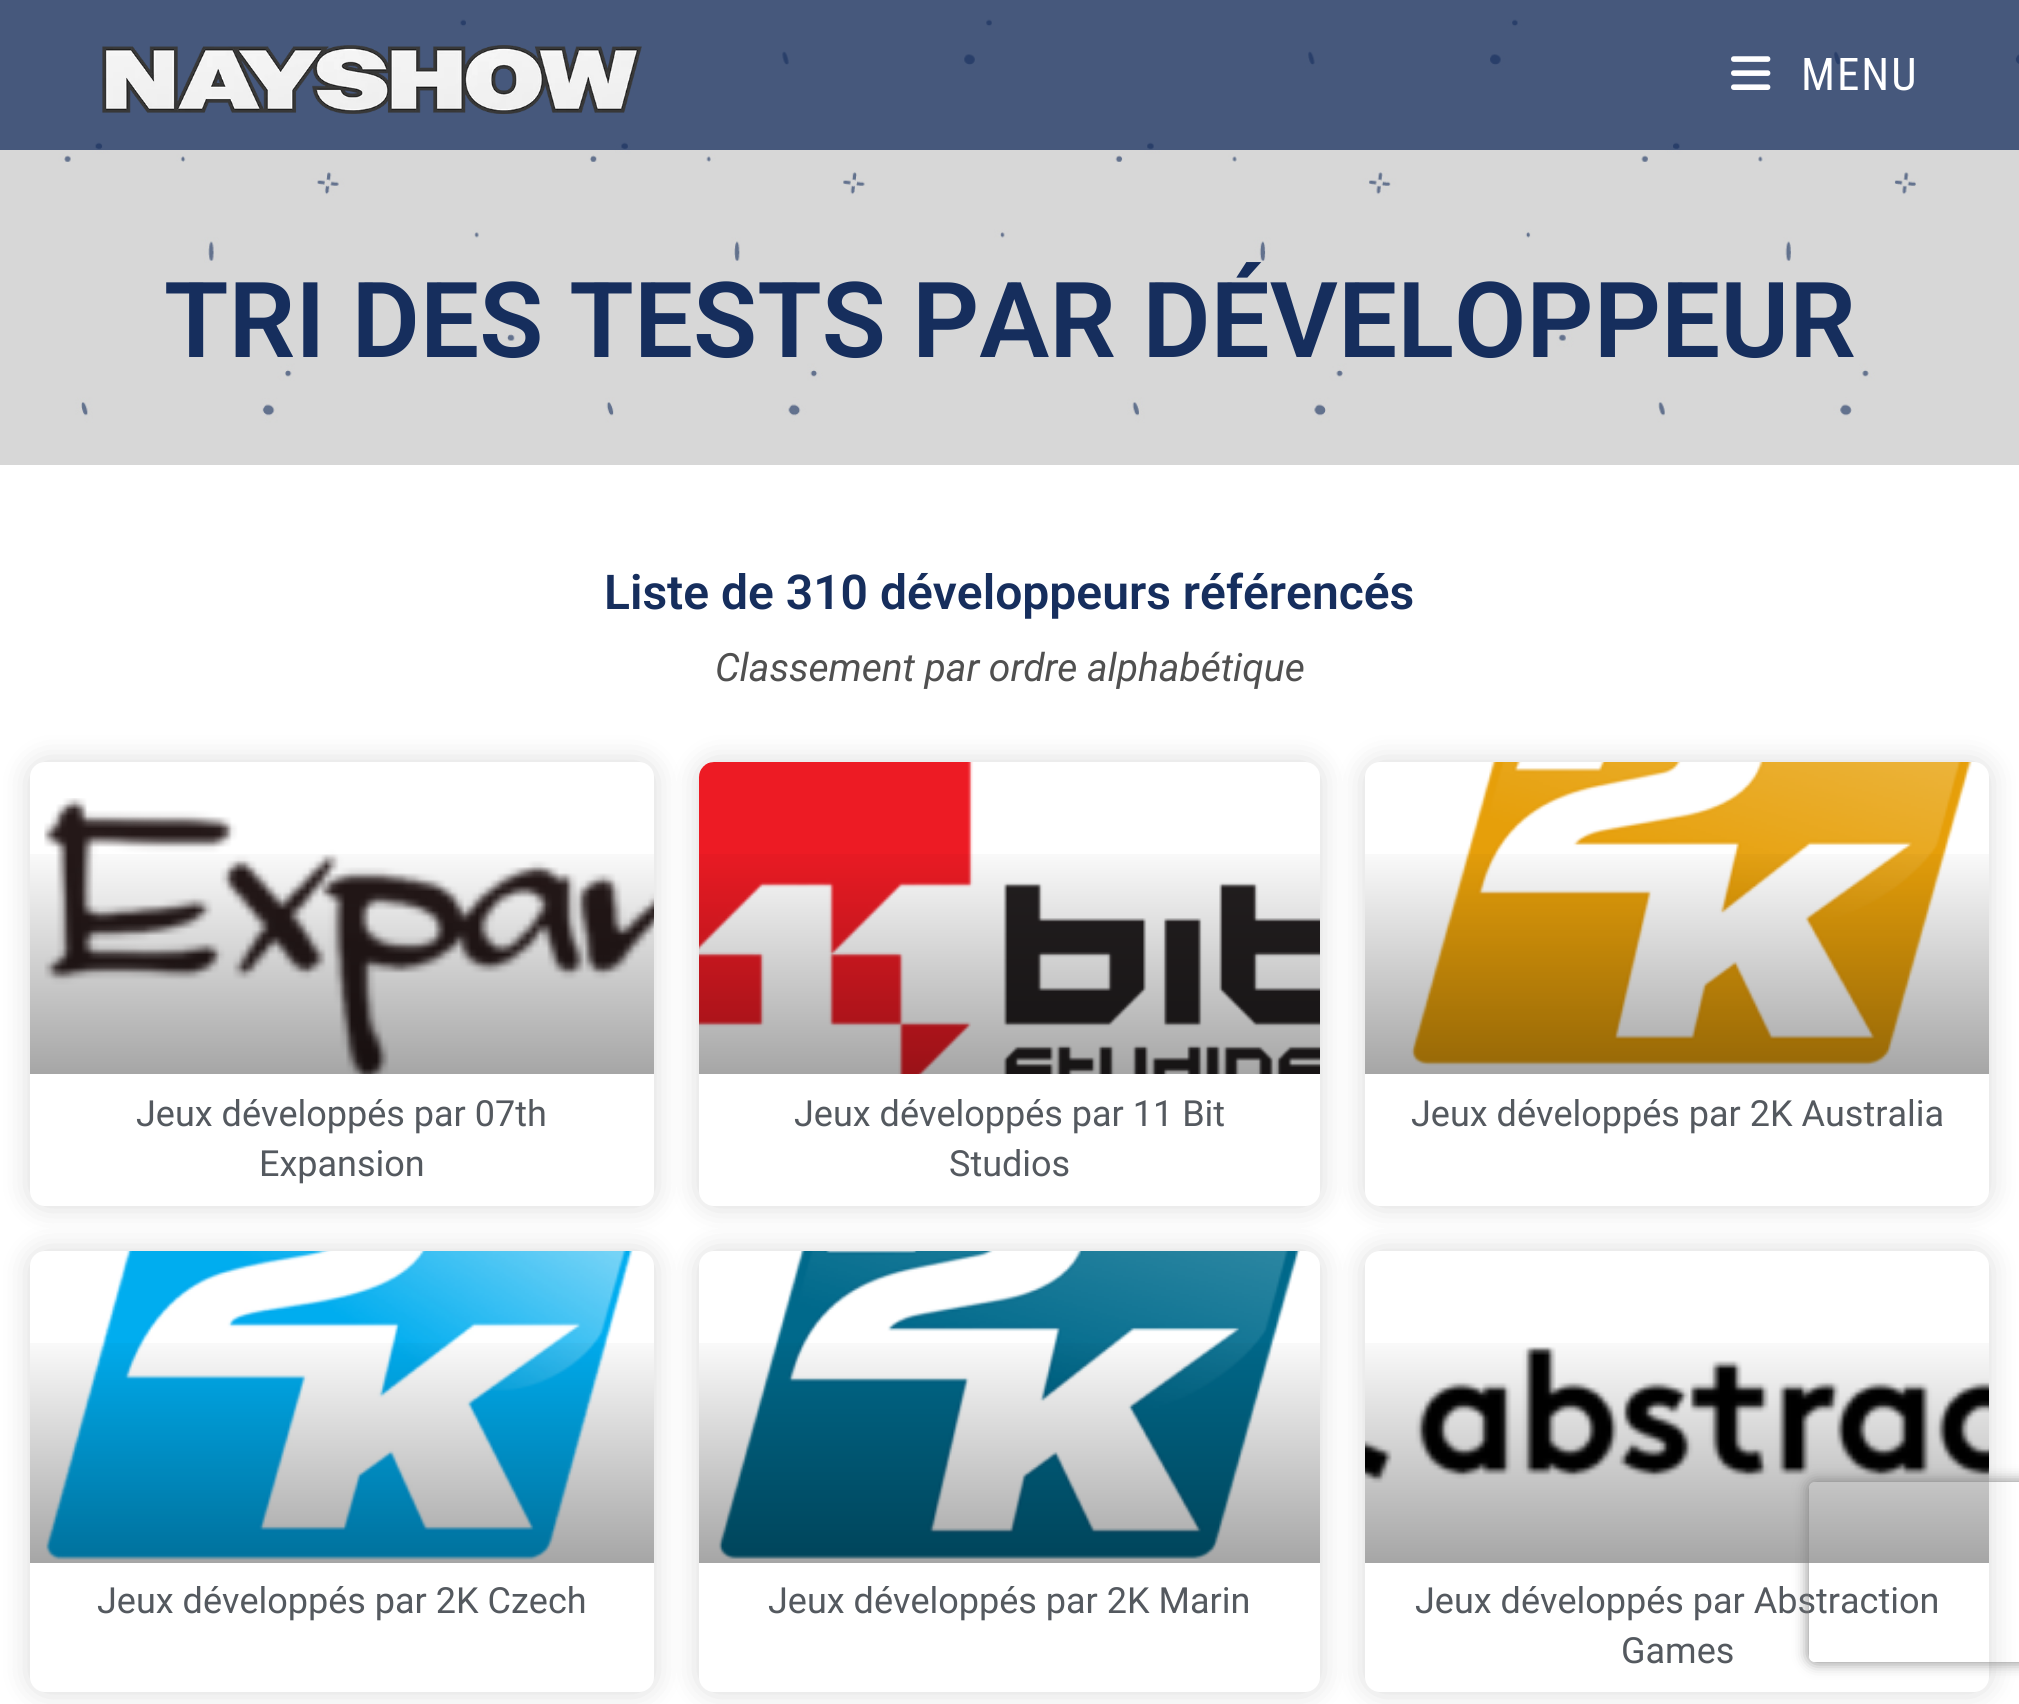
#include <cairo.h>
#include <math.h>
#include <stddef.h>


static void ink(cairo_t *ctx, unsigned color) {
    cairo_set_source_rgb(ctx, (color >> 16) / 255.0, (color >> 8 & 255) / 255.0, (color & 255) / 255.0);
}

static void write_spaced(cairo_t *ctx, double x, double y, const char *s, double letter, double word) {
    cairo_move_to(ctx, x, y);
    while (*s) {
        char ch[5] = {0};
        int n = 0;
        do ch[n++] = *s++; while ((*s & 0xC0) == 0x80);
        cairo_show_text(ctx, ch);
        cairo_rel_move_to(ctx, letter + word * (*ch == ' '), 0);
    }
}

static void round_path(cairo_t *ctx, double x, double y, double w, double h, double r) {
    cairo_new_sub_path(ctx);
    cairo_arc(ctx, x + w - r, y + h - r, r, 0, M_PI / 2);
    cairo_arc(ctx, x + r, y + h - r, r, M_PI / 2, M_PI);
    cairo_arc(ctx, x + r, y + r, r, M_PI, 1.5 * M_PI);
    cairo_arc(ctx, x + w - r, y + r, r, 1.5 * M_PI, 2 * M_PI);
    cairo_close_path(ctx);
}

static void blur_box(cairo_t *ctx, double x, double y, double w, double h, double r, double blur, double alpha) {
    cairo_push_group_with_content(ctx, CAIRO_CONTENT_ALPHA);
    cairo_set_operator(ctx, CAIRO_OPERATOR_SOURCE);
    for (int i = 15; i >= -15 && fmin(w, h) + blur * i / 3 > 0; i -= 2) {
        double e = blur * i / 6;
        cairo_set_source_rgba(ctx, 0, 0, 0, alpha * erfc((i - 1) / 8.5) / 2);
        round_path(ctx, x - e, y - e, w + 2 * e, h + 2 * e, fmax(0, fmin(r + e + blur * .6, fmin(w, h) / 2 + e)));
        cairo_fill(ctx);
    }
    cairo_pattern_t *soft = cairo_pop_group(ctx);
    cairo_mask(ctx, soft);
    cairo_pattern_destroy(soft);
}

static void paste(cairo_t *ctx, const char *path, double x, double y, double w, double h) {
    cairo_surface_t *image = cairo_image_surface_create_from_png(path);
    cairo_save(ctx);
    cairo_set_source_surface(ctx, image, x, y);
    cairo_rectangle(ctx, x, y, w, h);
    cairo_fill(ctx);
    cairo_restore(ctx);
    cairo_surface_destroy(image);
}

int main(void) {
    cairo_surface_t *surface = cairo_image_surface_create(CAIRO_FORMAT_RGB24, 2019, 1704);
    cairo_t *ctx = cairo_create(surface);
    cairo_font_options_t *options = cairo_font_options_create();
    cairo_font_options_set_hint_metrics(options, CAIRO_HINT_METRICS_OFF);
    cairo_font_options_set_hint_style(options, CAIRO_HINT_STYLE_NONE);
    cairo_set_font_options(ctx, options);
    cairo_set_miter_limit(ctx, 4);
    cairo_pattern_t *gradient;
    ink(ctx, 0xFFFFFF);
    cairo_paint(ctx);
    paste(ctx, "media/3.png", 0, 0, 2019, 465);
    cairo_set_source_rgba(ctx, 0.086, 0.18, 0.365, 0.75);
    cairo_rectangle(ctx, 0, 0, 2019, 150);
    cairo_fill(ctx);
    paste(ctx, "media/1.png", 102, 45, 540, 69);
    paste(ctx, "media/2.png", 1731, 56, 40, 34);
    cairo_select_font_face(ctx, "Roboto Condensed", CAIRO_FONT_SLANT_NORMAL, CAIRO_FONT_WEIGHT_NORMAL);
    cairo_set_font_size(ctx, 45);
    ink(ctx, 0xFFFFFF);
    write_spaced(ctx, 1801, 90, "MENU", 2, 0);
    cairo_select_font_face(ctx, "Roboto SemiBold", CAIRO_FONT_SLANT_NORMAL, CAIRO_FONT_WEIGHT_NORMAL);
    cairo_set_font_size(ctx, 105);
    ink(ctx, 0x162E5D);
    cairo_move_to(ctx, 164, 357);
    cairo_show_text(ctx, "TRI DES TESTS PAR DÉVELOPPEUR");
    cairo_set_font_size(ctx, 48);
    cairo_move_to(ctx, 604, 609);
    cairo_show_text(ctx, "Liste de 310 développeurs référencés");
    cairo_select_font_face(ctx, "Roboto", CAIRO_FONT_SLANT_ITALIC, CAIRO_FONT_WEIGHT_NORMAL);
    cairo_set_font_size(ctx, 39);
    ink(ctx, 0x505050);
    cairo_move_to(ctx, 715, 681);
    cairo_show_text(ctx, "Classement par ordre alphabétique");
    ink(ctx, 0x000000);
    blur_box(ctx, 30, 762, 624, 444, 15, 15, 0.15);
    ink(ctx, 0xFFFFFF);
    round_path(ctx, 30, 762, 624, 444, 15);
    cairo_fill(ctx);
    paste(ctx, "media/4.png", 44, 798, 610, 276);
    gradient = cairo_pattern_create_linear(342, 1074, 342, 762);
    cairo_pattern_add_color_stop_rgba(gradient, 0, 0, 0, 0, 0.35);
    cairo_pattern_add_color_stop_rgba(gradient, 0.75, 0, 0, 0, 0);
    cairo_set_source(ctx, gradient);
    cairo_pattern_destroy(gradient);
    cairo_rectangle(ctx, 30, 854, 624, 220);
    cairo_fill(ctx);
    cairo_select_font_face(ctx, "Roboto", CAIRO_FONT_SLANT_NORMAL, CAIRO_FONT_WEIGHT_NORMAL);
    cairo_set_font_size(ctx, 36);
    ink(ctx, 0x54595F);
    cairo_move_to(ctx, 136, 1126);
    cairo_show_text(ctx, "Jeux développés par 07th");
    cairo_move_to(ctx, 259, 1176);
    cairo_show_text(ctx, "Expansion");
    ink(ctx, 0x000000);
    blur_box(ctx, 699, 762, 621, 444, 15, 15, 0.15);
    ink(ctx, 0xFFFFFF);
    round_path(ctx, 699, 762, 621, 444, 15);
    cairo_fill(ctx);
    paste(ctx, "media/5.png", 699, 762, 621, 312);
    gradient = cairo_pattern_create_linear(1010, 1074, 1010, 762);
    cairo_pattern_add_color_stop_rgba(gradient, 0, 0, 0, 0, 0.35);
    cairo_pattern_add_color_stop_rgba(gradient, 0.75, 0, 0, 0, 0);
    cairo_set_source(ctx, gradient);
    cairo_pattern_destroy(gradient);
    cairo_rectangle(ctx, 699, 854, 621, 220);
    cairo_fill(ctx);
    ink(ctx, 0x54595F);
    cairo_move_to(ctx, 794, 1126);
    cairo_show_text(ctx, "Jeux développés par 11 Bit");
    cairo_move_to(ctx, 949, 1176);
    cairo_show_text(ctx, "Studios");
    ink(ctx, 0x000000);
    blur_box(ctx, 1365, 762, 624, 444, 15, 15, 0.15);
    ink(ctx, 0xFFFFFF);
    round_path(ctx, 1365, 762, 624, 444, 15);
    cairo_fill(ctx);
    paste(ctx, "media/6.png", 1411, 762, 561, 304);
    gradient = cairo_pattern_create_linear(1677, 1074, 1677, 762);
    cairo_pattern_add_color_stop_rgba(gradient, 0, 0, 0, 0, 0.35);
    cairo_pattern_add_color_stop_rgba(gradient, 0.75, 0, 0, 0, 0);
    cairo_set_source(ctx, gradient);
    cairo_pattern_destroy(gradient);
    cairo_rectangle(ctx, 1365, 854, 624, 220);
    cairo_fill(ctx);
    ink(ctx, 0x54595F);
    cairo_move_to(ctx, 1411, 1126);
    cairo_show_text(ctx, "Jeux développés par 2K Australia");
    ink(ctx, 0x000000);
    blur_box(ctx, 30, 1251, 624, 441, 15, 15, 0.15);
    ink(ctx, 0xFFFFFF);
    round_path(ctx, 30, 1251, 624, 441, 15);
    cairo_fill(ctx);
    paste(ctx, "media/7.png", 46, 1251, 587, 309);
    gradient = cairo_pattern_create_linear(342, 1563, 342, 1251);
    cairo_pattern_add_color_stop_rgba(gradient, 0, 0, 0, 0, 0.35);
    cairo_pattern_add_color_stop_rgba(gradient, 0.75, 0, 0, 0, 0);
    cairo_set_source(ctx, gradient);
    cairo_pattern_destroy(gradient);
    cairo_rectangle(ctx, 30, 1343, 624, 220);
    cairo_fill(ctx);
    ink(ctx, 0x54595F);
    cairo_move_to(ctx, 97, 1613);
    cairo_show_text(ctx, "Jeux développés par 2K Czech");
    ink(ctx, 0x000000);
    blur_box(ctx, 699, 1251, 621, 441, 15, 15, 0.15);
    ink(ctx, 0xFFFFFF);
    round_path(ctx, 699, 1251, 621, 441, 15);
    cairo_fill(ctx);
    paste(ctx, "media/8.png", 718, 1251, 582, 308);
    gradient = cairo_pattern_create_linear(1010, 1563, 1010, 1251);
    cairo_pattern_add_color_stop_rgba(gradient, 0, 0, 0, 0, 0.35);
    cairo_pattern_add_color_stop_rgba(gradient, 0.75, 0, 0, 0, 0);
    cairo_set_source(ctx, gradient);
    cairo_pattern_destroy(gradient);
    cairo_rectangle(ctx, 699, 1343, 621, 220);
    cairo_fill(ctx);
    ink(ctx, 0x54595F);
    cairo_move_to(ctx, 768, 1613);
    cairo_show_text(ctx, "Jeux développés par 2K Marin");
    ink(ctx, 0x000000);
    blur_box(ctx, 1365, 1251, 624, 441, 15, 15, 0.15);
    ink(ctx, 0xFFFFFF);
    round_path(ctx, 1365, 1251, 624, 441, 15);
    cairo_fill(ctx);
    paste(ctx, "media/9.png", 1365, 1346, 624, 137);
    gradient = cairo_pattern_create_linear(1677, 1563, 1677, 1251);
    cairo_pattern_add_color_stop_rgba(gradient, 0, 0, 0, 0, 0.35);
    cairo_pattern_add_color_stop_rgba(gradient, 0.75, 0, 0, 0, 0);
    cairo_set_source(ctx, gradient);
    cairo_pattern_destroy(gradient);
    cairo_rectangle(ctx, 1365, 1343, 624, 220);
    cairo_fill(ctx);
    ink(ctx, 0x54595F);
    cairo_move_to(ctx, 1415, 1613);
    cairo_show_text(ctx, "Jeux développés par Abstraction");
    cairo_move_to(ctx, 1621, 1663);
    cairo_show_text(ctx, "Games");
    cairo_save(ctx);
    cairo_set_fill_rule(ctx, CAIRO_FILL_RULE_EVEN_ODD);
    cairo_new_path(ctx);
    cairo_move_to(ctx, 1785, 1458);
    cairo_line_to(ctx, 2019, 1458);
    cairo_line_to(ctx, 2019, 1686);
    cairo_line_to(ctx, 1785, 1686);
    cairo_close_path(ctx);
    cairo_move_to(ctx, 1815, 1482);
    cairo_line_to(ctx, 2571, 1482);
    cairo_curve_to(ctx, 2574.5, 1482, 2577, 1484.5, 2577, 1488);
    cairo_line_to(ctx, 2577, 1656);
    cairo_curve_to(ctx, 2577, 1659.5, 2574.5, 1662, 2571, 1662);
    cairo_line_to(ctx, 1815, 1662);
    cairo_curve_to(ctx, 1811.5, 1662, 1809, 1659.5, 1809, 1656);
    cairo_line_to(ctx, 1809, 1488);
    cairo_curve_to(ctx, 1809, 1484.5, 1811.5, 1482, 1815, 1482);
    cairo_close_path(ctx);
    cairo_clip(ctx);
    ink(ctx, 0x808080);
    blur_box(ctx, 1809, 1482, 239, 180, 6, 7.5, 1);
    cairo_restore(ctx);
    cairo_surface_write_to_png(surface, "image.png");
    cairo_font_options_destroy(options);
    cairo_destroy(ctx);
    cairo_surface_destroy(surface);
    return 0;
}
